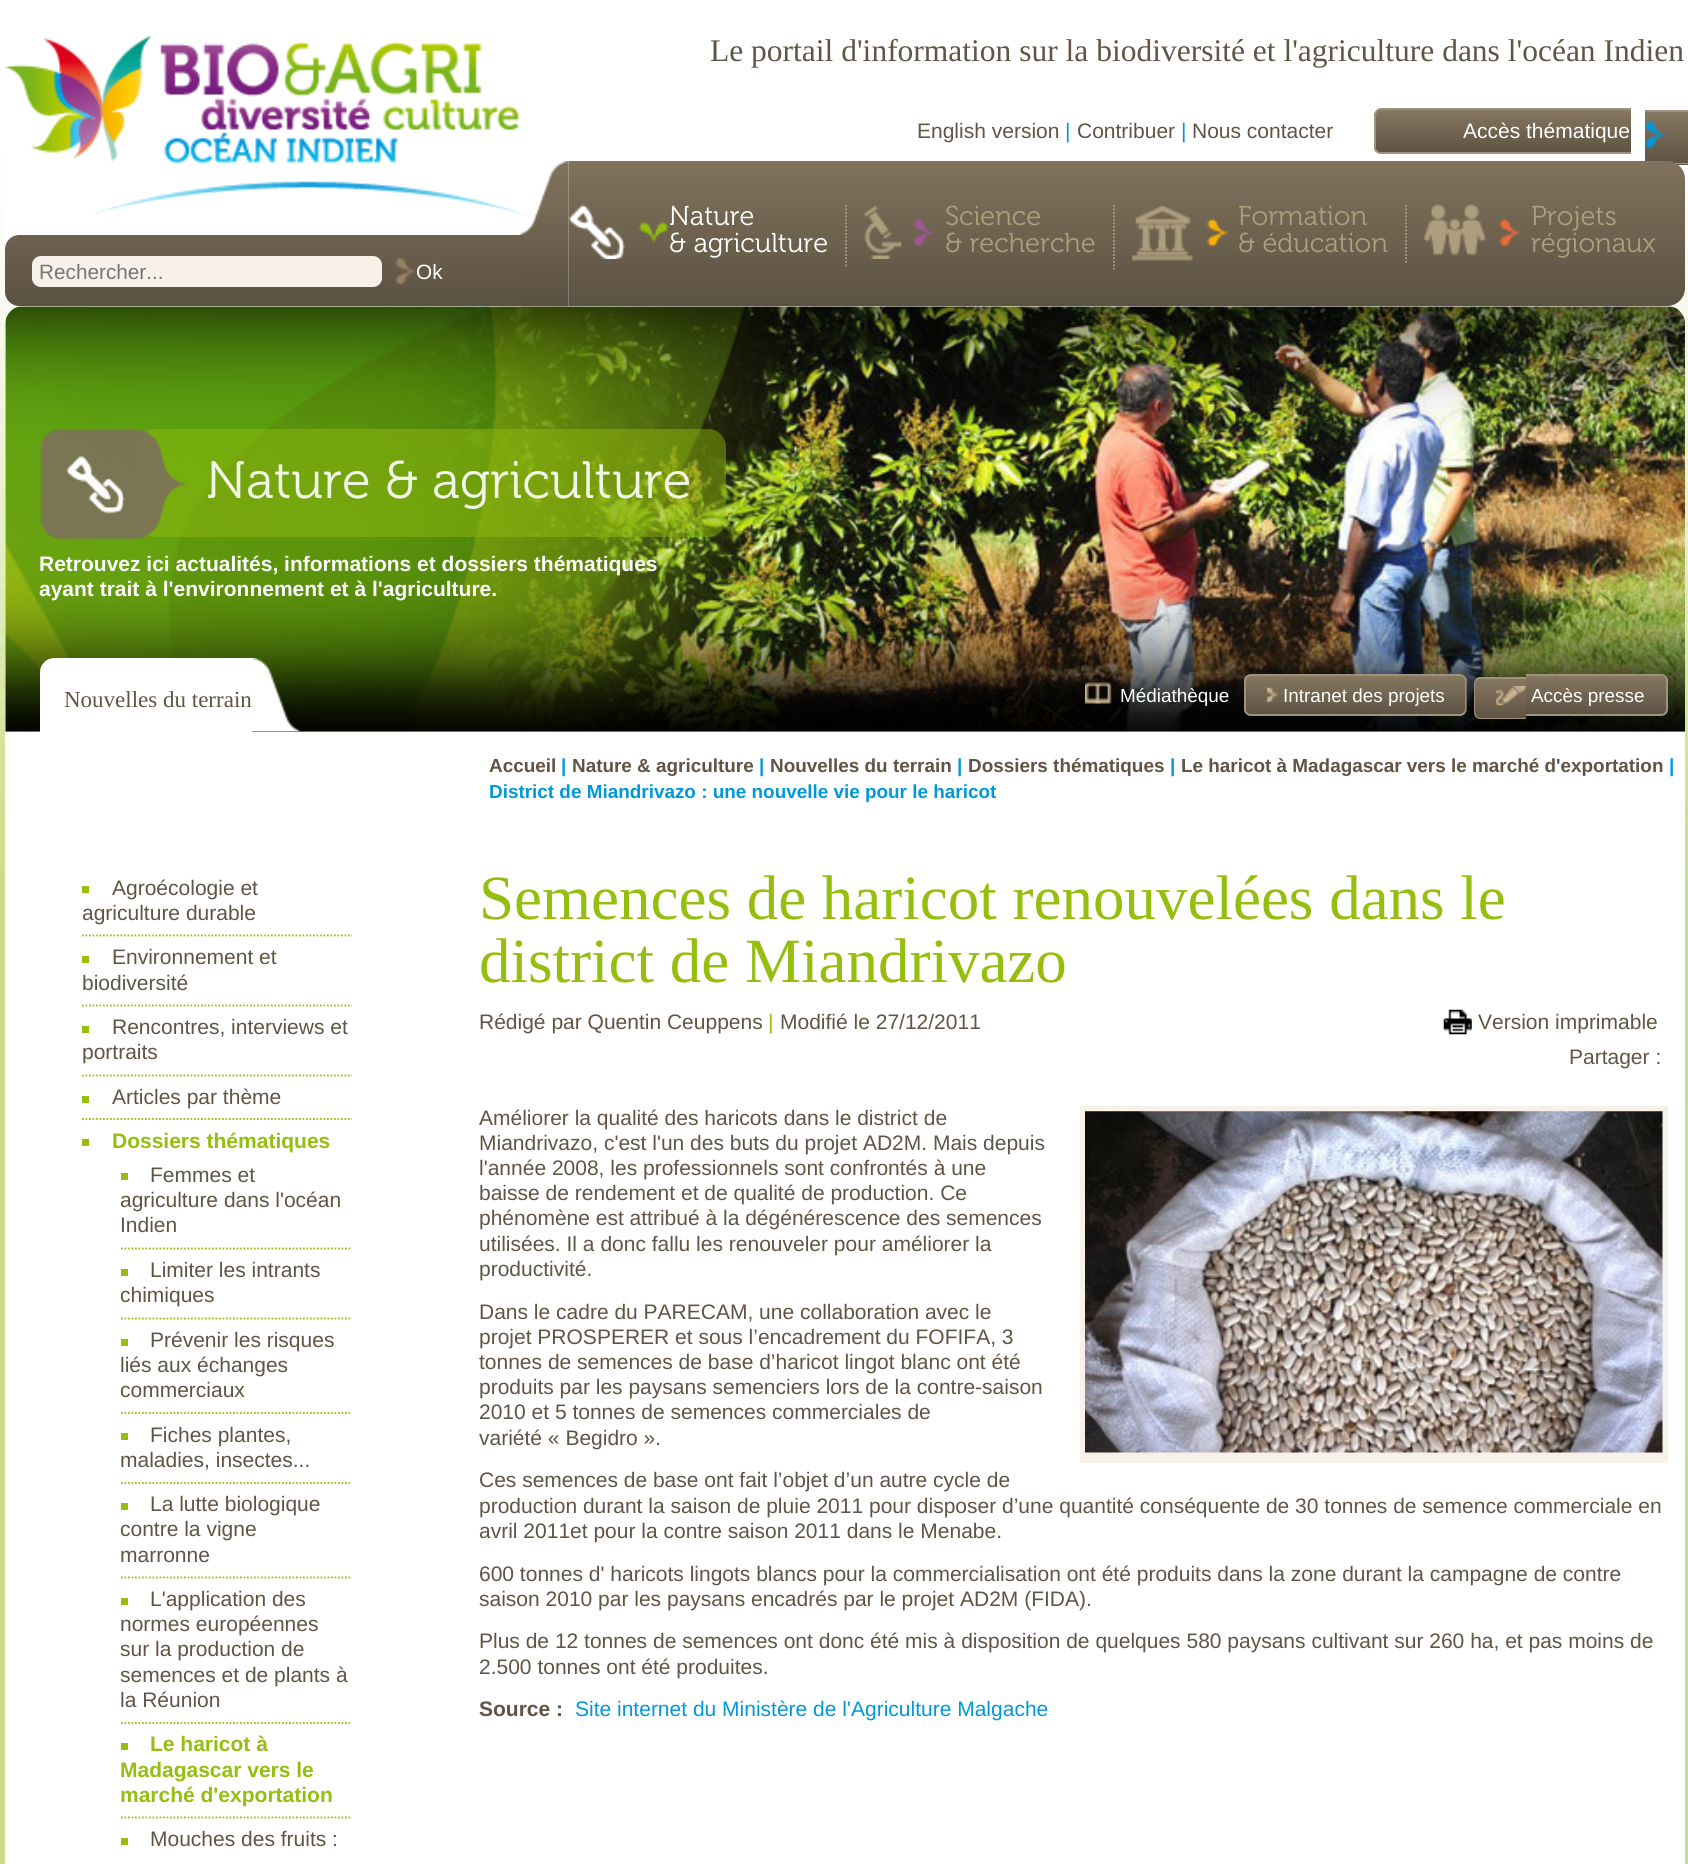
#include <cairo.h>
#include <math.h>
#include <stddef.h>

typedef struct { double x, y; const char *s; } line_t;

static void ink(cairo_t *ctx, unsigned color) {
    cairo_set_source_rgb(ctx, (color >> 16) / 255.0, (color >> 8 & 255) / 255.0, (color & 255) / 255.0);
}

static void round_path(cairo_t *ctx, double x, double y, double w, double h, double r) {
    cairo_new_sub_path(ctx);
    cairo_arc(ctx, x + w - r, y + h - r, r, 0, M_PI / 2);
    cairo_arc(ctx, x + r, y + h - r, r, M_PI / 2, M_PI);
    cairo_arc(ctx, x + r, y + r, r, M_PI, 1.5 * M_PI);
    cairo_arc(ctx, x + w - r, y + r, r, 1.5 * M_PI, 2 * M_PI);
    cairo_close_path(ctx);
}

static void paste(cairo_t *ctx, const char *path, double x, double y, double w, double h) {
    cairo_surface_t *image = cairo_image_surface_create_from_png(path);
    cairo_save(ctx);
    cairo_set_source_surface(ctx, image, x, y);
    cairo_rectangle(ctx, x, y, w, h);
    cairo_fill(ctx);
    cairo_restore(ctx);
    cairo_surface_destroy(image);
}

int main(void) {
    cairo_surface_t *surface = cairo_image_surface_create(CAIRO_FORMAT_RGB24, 1688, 1864);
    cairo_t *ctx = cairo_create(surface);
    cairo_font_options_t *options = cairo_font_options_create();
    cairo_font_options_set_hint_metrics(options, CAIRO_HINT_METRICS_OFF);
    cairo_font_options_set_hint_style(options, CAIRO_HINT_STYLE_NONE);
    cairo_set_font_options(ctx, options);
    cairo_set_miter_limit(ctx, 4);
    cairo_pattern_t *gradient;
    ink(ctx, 0xCADE86);
    cairo_paint(ctx);
    paste(ctx, "media/1.png", 0, 0, 1688, 869);
    ink(ctx, 0xFFFFFF);
    cairo_new_path(ctx);
    cairo_move_to(ctx, 5, 35);
    cairo_line_to(ctx, 1685, 35);
    cairo_line_to(ctx, 1685, 288);
    cairo_curve_to(ctx, 1685, 298, 1677, 306, 1667, 306);
    cairo_line_to(ctx, 23, 306);
    cairo_curve_to(ctx, 13, 306, 5, 298, 5, 288);
    cairo_close_path(ctx);
    cairo_fill(ctx);
    paste(ctx, "media/2.png", 5, 35, 530, 183);
    cairo_select_font_face(ctx, "Liberation Serif", CAIRO_FONT_SLANT_NORMAL, CAIRO_FONT_WEIGHT_NORMAL);
    cairo_set_font_size(ctx, 31.5);
    ink(ctx, 0x5F5445);
    cairo_move_to(ctx, 710, 61);
    cairo_show_text(ctx, "Le portail d'information sur la biodiversité et l'agriculture dans l'océan Indien");
    cairo_select_font_face(ctx, "Liberation Sans", CAIRO_FONT_SLANT_NORMAL, CAIRO_FONT_WEIGHT_NORMAL);
    cairo_set_font_size(ctx, 21);
    cairo_move_to(ctx, 917, 138);
    cairo_show_text(ctx, "English version");
    ink(ctx, 0x0098DA);
    cairo_move_to(ctx, 1065, 138);
    cairo_show_text(ctx, "|");
    ink(ctx, 0x5F5445);
    cairo_move_to(ctx, 1077, 138);
    cairo_show_text(ctx, "Contribuer");
    ink(ctx, 0x0098DA);
    cairo_move_to(ctx, 1181, 138);
    cairo_show_text(ctx, "|");
    ink(ctx, 0x5F5445);
    cairo_move_to(ctx, 1192, 138);
    cairo_show_text(ctx, "Nous contacter");
    cairo_save(ctx);
    cairo_new_path(ctx);
    cairo_move_to(ctx, 1381, 109);
    cairo_line_to(ctx, 1631, 109);
    cairo_line_to(ctx, 1631, 154);
    cairo_line_to(ctx, 1381, 154);
    cairo_curve_to(ctx, 1377, 154, 1374, 151, 1374, 147);
    cairo_line_to(ctx, 1374, 116);
    cairo_curve_to(ctx, 1374, 112, 1377, 109, 1381, 109);
    cairo_close_path(ctx);
    cairo_clip(ctx);
    gradient = cairo_pattern_create_linear(1503, 110, 1503, 152);
    cairo_pattern_add_color_stop_rgba(gradient, 0, 0.522, 0.467, 0.376, 1);
    cairo_pattern_add_color_stop_rgba(gradient, 1, 0.369, 0.325, 0.267, 1);
    cairo_set_source(ctx, gradient);
    cairo_pattern_destroy(gradient);
    cairo_rectangle(ctx, 1374, 110, 257, 42);
    cairo_fill(ctx);
    cairo_restore(ctx);
    ink(ctx, 0x9E917E);
    cairo_set_fill_rule(ctx, CAIRO_FILL_RULE_EVEN_ODD);
    cairo_new_path(ctx);
    cairo_move_to(ctx, 1381, 108);
    cairo_line_to(ctx, 1631, 108);
    cairo_line_to(ctx, 1631, 154);
    cairo_line_to(ctx, 1381, 154);
    cairo_curve_to(ctx, 1377, 154, 1374, 151, 1374, 147);
    cairo_line_to(ctx, 1374, 116);
    cairo_curve_to(ctx, 1374, 112, 1377, 108, 1381, 108);
    cairo_close_path(ctx);
    cairo_move_to(ctx, 1381, 110);
    cairo_line_to(ctx, 1631, 110);
    cairo_line_to(ctx, 1631, 152);
    cairo_line_to(ctx, 1381, 152);
    cairo_curve_to(ctx, 1378, 152, 1376, 150, 1376, 147);
    cairo_line_to(ctx, 1376, 116);
    cairo_curve_to(ctx, 1376, 113, 1378, 110, 1381, 110);
    cairo_close_path(ctx);
    cairo_fill(ctx);
    ink(ctx, 0x5E5344);
    cairo_rectangle(ctx, 1677, 164, 11, 1);
    cairo_fill(ctx);
    gradient = cairo_pattern_create_linear(1682, 112, 1682, 163);
    cairo_pattern_add_color_stop_rgba(gradient, 0, 0.522, 0.467, 0.376, 1);
    cairo_pattern_add_color_stop_rgba(gradient, 1, 0.369, 0.325, 0.267, 1);
    cairo_set_source(ctx, gradient);
    cairo_pattern_destroy(gradient);
    cairo_rectangle(ctx, 1645, 112, 43, 51);
    cairo_fill(ctx);
    ink(ctx, 0x9E917E);
    cairo_new_path(ctx);
    cairo_move_to(ctx, 1645, 110);
    cairo_line_to(ctx, 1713, 110);
    cairo_curve_to(ctx, 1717, 110, 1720, 113, 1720, 117);
    cairo_line_to(ctx, 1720, 158);
    cairo_curve_to(ctx, 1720, 161, 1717, 164, 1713, 164);
    cairo_line_to(ctx, 1645, 164);
    cairo_close_path(ctx);
    cairo_move_to(ctx, 1645, 112);
    cairo_line_to(ctx, 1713, 112);
    cairo_curve_to(ctx, 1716, 112, 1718, 114, 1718, 117);
    cairo_line_to(ctx, 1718, 158);
    cairo_curve_to(ctx, 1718, 160, 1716, 163, 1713, 163);
    cairo_line_to(ctx, 1645, 163);
    cairo_close_path(ctx);
    cairo_fill(ctx);
    ink(ctx, 0xFFFFFF);
    cairo_move_to(ctx, 1463, 138);
    cairo_show_text(ctx, "Accès thématique");
    paste(ctx, "media/3.png", 1645, 120, 21, 29);
    gradient = cairo_pattern_create_linear(1127, 161, 1127, 306);
    cairo_pattern_add_color_stop_rgba(gradient, 0, 0.502, 0.447, 0.361, 1);
    cairo_pattern_add_color_stop_rgba(gradient, 1, 0.361, 0.322, 0.263, 1);
    cairo_set_source(ctx, gradient);
    cairo_pattern_destroy(gradient);
    cairo_new_path(ctx);
    cairo_move_to(ctx, 569, 161);
    cairo_line_to(ctx, 1667, 161);
    cairo_curve_to(ctx, 1677, 161, 1685, 169, 1685, 179);
    cairo_line_to(ctx, 1685, 288);
    cairo_curve_to(ctx, 1685, 298, 1677, 306, 1667, 306);
    cairo_line_to(ctx, 569, 306);
    cairo_close_path(ctx);
    cairo_fill(ctx);
    gradient = cairo_pattern_create_linear(271, 234, 271, 306);
    cairo_pattern_add_color_stop_rgba(gradient, 0, 0.431, 0.384, 0.31, 1);
    cairo_pattern_add_color_stop_rgba(gradient, 1, 0.361, 0.322, 0.263, 1);
    cairo_set_source(ctx, gradient);
    cairo_pattern_destroy(gradient);
    cairo_new_path(ctx);
    cairo_move_to(ctx, 19, 235);
    cairo_line_to(ctx, 537, 235);
    cairo_line_to(ctx, 537, 306);
    cairo_line_to(ctx, 19, 306);
    cairo_curve_to(ctx, 11.5, 306, 5, 299.5, 5, 292);
    cairo_line_to(ctx, 5, 249);
    cairo_curve_to(ctx, 5, 241.5, 11.5, 235, 19, 235);
    cairo_close_path(ctx);
    cairo_fill(ctx);
    paste(ctx, "media/14.png", 5, 306, 1680, 426);
    paste(ctx, "media/4.png", 519, 161, 50, 146);
    paste(ctx, "media/5.png", 638, 222, 31, 21);
    paste(ctx, "media/6.png", 568, 204, 57, 55);
    cairo_select_font_face(ctx, "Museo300", CAIRO_FONT_SLANT_NORMAL, CAIRO_FONT_WEIGHT_NORMAL);
    cairo_set_font_size(ctx, 27.25);
    ink(ctx, 0xFFFFFF);
    cairo_move_to(ctx, 669, 225);
    cairo_show_text(ctx, "Nature");
    cairo_move_to(ctx, 669, 252);
    cairo_show_text(ctx, "& agriculture");
    paste(ctx, "media/7.png", 913, 219, 21, 28);
    cairo_new_path(ctx);
    cairo_move_to(ctx, 846, 205);
    cairo_line_to(ctx, 846, 268);
    ink(ctx, 0xAD9E7E);
    cairo_set_line_width(ctx, 1.8);
    cairo_set_dash(ctx, (double[]){1.75, 1.75}, 2, 0);
    cairo_stroke(ctx);
    paste(ctx, "media/8.png", 864, 205, 38, 54);
    cairo_move_to(ctx, 945, 225);
    cairo_show_text(ctx, "Science");
    cairo_move_to(ctx, 945, 252);
    cairo_show_text(ctx, "& recherche");
    paste(ctx, "media/9.png", 1207, 218, 22, 29);
    cairo_new_path(ctx);
    cairo_move_to(ctx, 1114, 205);
    cairo_line_to(ctx, 1114, 269.5);
    cairo_stroke(ctx);
    paste(ctx, "media/10.png", 1132, 205, 62, 56);
    cairo_move_to(ctx, 1238, 225);
    cairo_show_text(ctx, "Formation");
    cairo_move_to(ctx, 1238, 252);
    cairo_show_text(ctx, "& éducation");
    paste(ctx, "media/11.png", 1499, 218, 22, 29);
    cairo_new_path(ctx);
    cairo_move_to(ctx, 1406, 205);
    cairo_line_to(ctx, 1406, 264);
    cairo_stroke(ctx);
    paste(ctx, "media/12.png", 1424, 204, 62, 52);
    cairo_move_to(ctx, 1531, 225);
    cairo_show_text(ctx, "Projets");
    cairo_move_to(ctx, 1531, 252);
    cairo_show_text(ctx, "régionaux");
    ink(ctx, 0xF7F1E9);
    round_path(ctx, 32, 256, 350, 31, 9);
    cairo_fill(ctx);
    cairo_select_font_face(ctx, "Liberation Sans", CAIRO_FONT_SLANT_NORMAL, CAIRO_FONT_WEIGHT_NORMAL);
    cairo_set_font_size(ctx, 20.75);
    ink(ctx, 0x757575);
    cairo_move_to(ctx, 39, 279);
    cairo_show_text(ctx, "Rechercher...");
    paste(ctx, "media/13.png", 395, 257, 21, 28);
    ink(ctx, 0xFFFFFF);
    cairo_move_to(ctx, 416, 279);
    cairo_show_text(ctx, "Ok");
    cairo_set_source_rgba(ctx, 0.584, 0.745, 0.055, 0.45);
    round_path(ctx, 137, 429, 589, 108, 18);
    cairo_fill(ctx);
    paste(ctx, "media/15.png", 40, 428, 148, 111);
    paste(ctx, "media/16.png", 66, 456, 59, 58);
    cairo_select_font_face(ctx, "Museo300", CAIRO_FONT_SLANT_NORMAL, CAIRO_FONT_WEIGHT_NORMAL);
    cairo_set_font_size(ctx, 52.5);
    ink(ctx, 0xF1F6E7);
    cairo_move_to(ctx, 206, 498);
    cairo_show_text(ctx, "Nature & agriculture");
    cairo_select_font_face(ctx, "Liberation Sans", CAIRO_FONT_SLANT_NORMAL, CAIRO_FONT_WEIGHT_BOLD);
    cairo_set_font_size(ctx, 21);
    ink(ctx, 0xFFFFFF);
    cairo_move_to(ctx, 39, 571);
    cairo_show_text(ctx, "Retrouvez ici actualités, informations et dossiers thématiques");
    cairo_move_to(ctx, 39, 596);
    cairo_show_text(ctx, "ayant trait à l'environnement et à l'agriculture.");
    cairo_new_path(ctx);
    cairo_move_to(ctx, 54, 658);
    cairo_line_to(ctx, 252, 658);
    cairo_line_to(ctx, 252, 732);
    cairo_line_to(ctx, 40, 732);
    cairo_line_to(ctx, 40, 672);
    cairo_curve_to(ctx, 40, 664.5, 46.5, 658, 54, 658);
    cairo_close_path(ctx);
    cairo_fill(ctx);
    cairo_select_font_face(ctx, "Liberation Serif", CAIRO_FONT_SLANT_NORMAL, CAIRO_FONT_WEIGHT_NORMAL);
    cairo_set_font_size(ctx, 23);
    ink(ctx, 0x5F5445);
    cairo_move_to(ctx, 64, 707);
    cairo_show_text(ctx, "Nouvelles du terrain");
    paste(ctx, "media/17.png", 252, 658, 48, 74);
    paste(ctx, "media/18.png", 1085, 682, 27, 22);
    cairo_select_font_face(ctx, "Liberation Sans", CAIRO_FONT_SLANT_NORMAL, CAIRO_FONT_WEIGHT_NORMAL);
    cairo_set_font_size(ctx, 18.9);
    ink(ctx, 0xFFFFFF);
    cairo_move_to(ctx, 1120, 702);
    cairo_show_text(ctx, "Médiathèque");
    cairo_save(ctx);
    cairo_set_fill_rule(ctx, CAIRO_FILL_RULE_WINDING);
    cairo_new_path(ctx);
    cairo_move_to(ctx, 1251, 674);
    cairo_line_to(ctx, 1278, 674);
    cairo_line_to(ctx, 1278, 716);
    cairo_line_to(ctx, 1251, 716);
    cairo_curve_to(ctx, 1247, 716, 1244, 713, 1244, 709);
    cairo_line_to(ctx, 1244, 681);
    cairo_curve_to(ctx, 1244, 677, 1247, 674, 1251, 674);
    cairo_close_path(ctx);
    cairo_clip(ctx);
    gradient = cairo_pattern_create_linear(1262, 676, 1262, 714);
    cairo_pattern_add_color_stop_rgba(gradient, 0, 0.522, 0.467, 0.376, 1);
    cairo_pattern_add_color_stop_rgba(gradient, 1, 0.369, 0.325, 0.267, 1);
    cairo_set_source(ctx, gradient);
    cairo_pattern_destroy(gradient);
    cairo_rectangle(ctx, 1244, 676, 34, 38);
    cairo_fill(ctx);
    cairo_restore(ctx);
    ink(ctx, 0x9E917E);
    cairo_new_path(ctx);
    cairo_move_to(ctx, 1251, 674);
    cairo_line_to(ctx, 1278, 674);
    cairo_line_to(ctx, 1278, 716);
    cairo_line_to(ctx, 1251, 716);
    cairo_curve_to(ctx, 1247, 716, 1244, 713, 1244, 709);
    cairo_line_to(ctx, 1244, 681);
    cairo_curve_to(ctx, 1244, 677, 1247, 674, 1251, 674);
    cairo_close_path(ctx);
    cairo_move_to(ctx, 1251, 676);
    cairo_line_to(ctx, 1278, 676);
    cairo_line_to(ctx, 1278, 714);
    cairo_line_to(ctx, 1251, 714);
    cairo_curve_to(ctx, 1248, 714, 1246, 712, 1246, 709);
    cairo_line_to(ctx, 1246, 681);
    cairo_curve_to(ctx, 1246, 678, 1248, 676, 1251, 676);
    cairo_close_path(ctx);
    cairo_fill(ctx);
    paste(ctx, "media/19.png", 1267, 687, 11, 15);
    ink(ctx, 0x5E5344);
    cairo_new_path(ctx);
    cairo_move_to(ctx, 1278, 674);
    cairo_line_to(ctx, 1460, 674);
    cairo_curve_to(ctx, 1464, 674, 1467, 677, 1467, 681);
    cairo_line_to(ctx, 1467, 709);
    cairo_curve_to(ctx, 1467, 713, 1464, 716, 1460, 716);
    cairo_line_to(ctx, 1278, 716);
    cairo_close_path(ctx);
    cairo_fill(ctx);
    cairo_save(ctx);
    cairo_set_fill_rule(ctx, CAIRO_FILL_RULE_WINDING);
    cairo_new_path(ctx);
    cairo_move_to(ctx, 1278, 674);
    cairo_line_to(ctx, 1460, 674);
    cairo_curve_to(ctx, 1464, 674, 1467, 677, 1467, 681);
    cairo_line_to(ctx, 1467, 709);
    cairo_curve_to(ctx, 1467, 713, 1464, 716, 1460, 716);
    cairo_line_to(ctx, 1278, 716);
    cairo_close_path(ctx);
    cairo_clip(ctx);
    gradient = cairo_pattern_create_linear(1371, 676, 1371, 714);
    cairo_pattern_add_color_stop_rgba(gradient, 0, 0.522, 0.467, 0.376, 1);
    cairo_pattern_add_color_stop_rgba(gradient, 1, 0.369, 0.325, 0.267, 1);
    cairo_set_source(ctx, gradient);
    cairo_pattern_destroy(gradient);
    cairo_rectangle(ctx, 1278, 676, 189, 38);
    cairo_fill(ctx);
    cairo_restore(ctx);
    ink(ctx, 0x9E917E);
    cairo_new_path(ctx);
    cairo_move_to(ctx, 1278, 674);
    cairo_line_to(ctx, 1460, 674);
    cairo_curve_to(ctx, 1463, 674, 1466, 677, 1466, 681);
    cairo_line_to(ctx, 1466, 709);
    cairo_curve_to(ctx, 1466, 713, 1463, 716, 1460, 716);
    cairo_line_to(ctx, 1278, 716);
    cairo_close_path(ctx);
    cairo_move_to(ctx, 1278, 676);
    cairo_line_to(ctx, 1460, 676);
    cairo_curve_to(ctx, 1462, 676, 1465, 678, 1465, 681);
    cairo_line_to(ctx, 1465, 709);
    cairo_curve_to(ctx, 1465, 712, 1462, 714, 1460, 714);
    cairo_line_to(ctx, 1278, 714);
    cairo_close_path(ctx);
    cairo_fill(ctx);
    ink(ctx, 0xFFFFFF);
    cairo_move_to(ctx, 1283, 702);
    cairo_show_text(ctx, "Intranet des projets");
    cairo_save(ctx);
    cairo_set_fill_rule(ctx, CAIRO_FILL_RULE_WINDING);
    cairo_new_path(ctx);
    cairo_move_to(ctx, 1481, 677);
    cairo_line_to(ctx, 1526, 677);
    cairo_line_to(ctx, 1526, 719);
    cairo_line_to(ctx, 1481, 719);
    cairo_curve_to(ctx, 1477, 719, 1474, 716, 1474, 712);
    cairo_line_to(ctx, 1474, 684);
    cairo_curve_to(ctx, 1474, 680, 1477, 677, 1481, 677);
    cairo_close_path(ctx);
    cairo_clip(ctx);
    gradient = cairo_pattern_create_linear(1501, 679, 1501, 718);
    cairo_pattern_add_color_stop_rgba(gradient, 0, 0.522, 0.467, 0.376, 1);
    cairo_pattern_add_color_stop_rgba(gradient, 1, 0.369, 0.325, 0.267, 1);
    cairo_set_source(ctx, gradient);
    cairo_pattern_destroy(gradient);
    cairo_rectangle(ctx, 1474, 679, 52, 39);
    cairo_fill(ctx);
    cairo_restore(ctx);
    ink(ctx, 0x9E917E);
    cairo_new_path(ctx);
    cairo_move_to(ctx, 1480, 677);
    cairo_line_to(ctx, 1526, 677);
    cairo_line_to(ctx, 1526, 719);
    cairo_line_to(ctx, 1480, 719);
    cairo_curve_to(ctx, 1477, 719, 1474, 716, 1474, 712);
    cairo_line_to(ctx, 1474, 684);
    cairo_curve_to(ctx, 1474, 680, 1477, 677, 1480, 677);
    cairo_close_path(ctx);
    cairo_move_to(ctx, 1480, 679);
    cairo_line_to(ctx, 1526, 679);
    cairo_line_to(ctx, 1526, 718);
    cairo_line_to(ctx, 1480, 718);
    cairo_curve_to(ctx, 1478, 718, 1475, 715, 1475, 712);
    cairo_line_to(ctx, 1475, 684);
    cairo_curve_to(ctx, 1475, 681, 1478, 679, 1480, 679);
    cairo_close_path(ctx);
    cairo_fill(ctx);
    paste(ctx, "media/20.png", 1496, 686, 30, 20);
    cairo_save(ctx);
    cairo_set_fill_rule(ctx, CAIRO_FILL_RULE_WINDING);
    cairo_new_path(ctx);
    cairo_move_to(ctx, 1526, 674);
    cairo_line_to(ctx, 1661, 674);
    cairo_curve_to(ctx, 1665, 674, 1668, 677, 1668, 681);
    cairo_line_to(ctx, 1668, 709);
    cairo_curve_to(ctx, 1668, 713, 1665, 716, 1661, 716);
    cairo_line_to(ctx, 1526, 716);
    cairo_close_path(ctx);
    cairo_clip(ctx);
    gradient = cairo_pattern_create_linear(1596, 676, 1596, 714);
    cairo_pattern_add_color_stop_rgba(gradient, 0, 0.522, 0.467, 0.376, 1);
    cairo_pattern_add_color_stop_rgba(gradient, 1, 0.369, 0.325, 0.267, 1);
    cairo_set_source(ctx, gradient);
    cairo_pattern_destroy(gradient);
    cairo_rectangle(ctx, 1526, 676, 142, 38);
    cairo_fill(ctx);
    cairo_restore(ctx);
    cairo_new_path(ctx);
    cairo_move_to(ctx, 1526, 674);
    cairo_line_to(ctx, 1661, 674);
    cairo_curve_to(ctx, 1665, 674, 1668, 677, 1668, 681);
    cairo_line_to(ctx, 1668, 709);
    cairo_curve_to(ctx, 1668, 713, 1665, 716, 1661, 716);
    cairo_line_to(ctx, 1526, 716);
    cairo_close_path(ctx);
    cairo_move_to(ctx, 1526, 676);
    cairo_line_to(ctx, 1661, 676);
    cairo_curve_to(ctx, 1664, 676, 1666, 678, 1666, 681);
    cairo_line_to(ctx, 1666, 709);
    cairo_curve_to(ctx, 1666, 712, 1664, 714, 1661, 714);
    cairo_line_to(ctx, 1526, 714);
    cairo_close_path(ctx);
    cairo_fill(ctx);
    ink(ctx, 0xFFFFFF);
    cairo_move_to(ctx, 1531, 702);
    cairo_show_text(ctx, "Accès presse");
    cairo_rectangle(ctx, 5, 732, 1680, 1132);
    cairo_fill(ctx);
    cairo_select_font_face(ctx, "Liberation Sans", CAIRO_FONT_SLANT_NORMAL, CAIRO_FONT_WEIGHT_BOLD);
    ink(ctx, 0x5F5445);
    cairo_move_to(ctx, 489, 772);
    cairo_show_text(ctx, "Accueil");
    ink(ctx, 0x0098DA);
    cairo_move_to(ctx, 561, 772);
    cairo_show_text(ctx, "|");
    ink(ctx, 0x5F5445);
    cairo_move_to(ctx, 572, 772);
    cairo_show_text(ctx, "Nature & agriculture");
    ink(ctx, 0x0098DA);
    cairo_move_to(ctx, 759, 772);
    cairo_show_text(ctx, "|");
    ink(ctx, 0x5F5445);
    cairo_move_to(ctx, 770, 772);
    cairo_show_text(ctx, "Nouvelles du terrain");
    ink(ctx, 0x0098DA);
    cairo_move_to(ctx, 957, 772);
    cairo_show_text(ctx, "|");
    ink(ctx, 0x5F5445);
    cairo_move_to(ctx, 968, 772);
    cairo_show_text(ctx, "Dossiers thématiques");
    ink(ctx, 0x0098DA);
    cairo_move_to(ctx, 1170, 772);
    cairo_show_text(ctx, "|");
    ink(ctx, 0x5F5445);
    cairo_move_to(ctx, 1181, 772);
    cairo_show_text(ctx, "Le haricot à Madagascar vers le marché d'exportation");
    ink(ctx, 0x0098DA);
    cairo_move_to(ctx, 1669, 772);
    cairo_show_text(ctx, "|");
    cairo_move_to(ctx, 489, 798);
    cairo_show_text(ctx, "District de Miandrivazo : une nouvelle vie pour le haricot");
    cairo_new_path(ctx);
    cairo_move_to(ctx, 82, 935.5);
    cairo_line_to(ctx, 352, 935.5);
    ink(ctx, 0x95BE0E);
    cairo_stroke(ctx);
    cairo_rectangle(ctx, 82, 886, 7, 7);
    cairo_fill(ctx);
    cairo_select_font_face(ctx, "Liberation Sans", CAIRO_FONT_SLANT_NORMAL, CAIRO_FONT_WEIGHT_NORMAL);
    cairo_set_font_size(ctx, 21);
    ink(ctx, 0x5F5445);
    cairo_move_to(ctx, 112, 895);
    cairo_show_text(ctx, "Agroécologie et");
    cairo_move_to(ctx, 82, 920);
    cairo_show_text(ctx, "agriculture durable");
    cairo_new_path(ctx);
    cairo_move_to(ctx, 82, 1005.5);
    cairo_line_to(ctx, 352, 1005.5);
    ink(ctx, 0x95BE0E);
    cairo_stroke(ctx);
    cairo_rectangle(ctx, 82, 956, 7, 7);
    cairo_fill(ctx);
    ink(ctx, 0x5F5445);
    cairo_move_to(ctx, 112, 964);
    cairo_show_text(ctx, "Environnement et");
    cairo_move_to(ctx, 82, 990);
    cairo_show_text(ctx, "biodiversité");
    cairo_new_path(ctx);
    cairo_move_to(ctx, 82, 1075.5);
    cairo_line_to(ctx, 352, 1075.5);
    ink(ctx, 0x95BE0E);
    cairo_stroke(ctx);
    cairo_rectangle(ctx, 82, 1026, 7, 7);
    cairo_fill(ctx);
    ink(ctx, 0x5F5445);
    cairo_move_to(ctx, 112, 1034);
    cairo_show_text(ctx, "Rencontres, interviews et");
    cairo_move_to(ctx, 82, 1059);
    cairo_show_text(ctx, "portraits");
    cairo_new_path(ctx);
    cairo_move_to(ctx, 82, 1119);
    cairo_line_to(ctx, 352, 1119);
    ink(ctx, 0x95BE0E);
    cairo_stroke(ctx);
    cairo_rectangle(ctx, 82, 1096, 7, 7);
    cairo_fill(ctx);
    ink(ctx, 0x5F5445);
    cairo_move_to(ctx, 112, 1104);
    cairo_show_text(ctx, "Articles par thème");
    ink(ctx, 0x95BE0E);
    cairo_rectangle(ctx, 82, 1139, 7, 7);
    cairo_fill(ctx);
    cairo_select_font_face(ctx, "Liberation Sans", CAIRO_FONT_SLANT_NORMAL, CAIRO_FONT_WEIGHT_BOLD);
    cairo_move_to(ctx, 112, 1148);
    cairo_show_text(ctx, "Dossiers thématiques");
    cairo_new_path(ctx);
    cairo_move_to(ctx, 121, 1248.5);
    cairo_line_to(ctx, 352, 1248.5);
    cairo_stroke(ctx);
    cairo_rectangle(ctx, 121, 1173, 7, 7);
    cairo_fill(ctx);
    cairo_select_font_face(ctx, "Liberation Sans", CAIRO_FONT_SLANT_NORMAL, CAIRO_FONT_WEIGHT_NORMAL);
    ink(ctx, 0x5F5445);
    {
        static const line_t items[] = {
            {150, 1182, "Femmes et"},
            {120, 1207, "agriculture dans l'océan"},
            {120, 1232, "Indien"},
        };
        for (size_t i = 0; i < sizeof items / sizeof *items; i++) {
            cairo_move_to(ctx, items[i].x, items[i].y);
            cairo_show_text(ctx, items[i].s);
        }
    }
    cairo_new_path(ctx);
    cairo_move_to(ctx, 121, 1318.5);
    cairo_line_to(ctx, 352, 1318.5);
    ink(ctx, 0x95BE0E);
    cairo_stroke(ctx);
    cairo_rectangle(ctx, 121, 1269, 7, 7);
    cairo_fill(ctx);
    ink(ctx, 0x5F5445);
    cairo_move_to(ctx, 150, 1277);
    cairo_show_text(ctx, "Limiter les intrants");
    cairo_move_to(ctx, 120, 1302);
    cairo_show_text(ctx, "chimiques");
    cairo_new_path(ctx);
    cairo_move_to(ctx, 121, 1413);
    cairo_line_to(ctx, 352, 1413);
    ink(ctx, 0x95BE0E);
    cairo_stroke(ctx);
    cairo_rectangle(ctx, 121, 1339, 7, 7);
    cairo_fill(ctx);
    ink(ctx, 0x5F5445);
    {
        static const line_t items[] = {
            {150, 1347, "Prévenir les risques"},
            {120, 1372, "liés aux échanges"},
            {120, 1397, "commerciaux"},
        };
        for (size_t i = 0; i < sizeof items / sizeof *items; i++) {
            cairo_move_to(ctx, items[i].x, items[i].y);
            cairo_show_text(ctx, items[i].s);
        }
    }
    cairo_new_path(ctx);
    cairo_move_to(ctx, 121, 1483);
    cairo_line_to(ctx, 352, 1483);
    ink(ctx, 0x95BE0E);
    cairo_stroke(ctx);
    cairo_rectangle(ctx, 121, 1433, 7, 7);
    cairo_fill(ctx);
    ink(ctx, 0x5F5445);
    cairo_move_to(ctx, 150, 1442);
    cairo_show_text(ctx, "Fiches plantes,");
    cairo_move_to(ctx, 120, 1467);
    cairo_show_text(ctx, "maladies, insectes...");
    cairo_new_path(ctx);
    cairo_move_to(ctx, 121, 1577.5);
    cairo_line_to(ctx, 352, 1577.5);
    ink(ctx, 0x95BE0E);
    cairo_stroke(ctx);
    cairo_rectangle(ctx, 121, 1503, 7, 7);
    cairo_fill(ctx);
    ink(ctx, 0x5F5445);
    {
        static const line_t items[] = {
            {150, 1511, "La lutte biologique"},
            {120, 1536, "contre la vigne"},
            {120, 1562, "marronne"},
        };
        for (size_t i = 0; i < sizeof items / sizeof *items; i++) {
            cairo_move_to(ctx, items[i].x, items[i].y);
            cairo_show_text(ctx, items[i].s);
        }
    }
    cairo_new_path(ctx);
    cairo_move_to(ctx, 121, 1723);
    cairo_line_to(ctx, 352, 1723);
    ink(ctx, 0x95BE0E);
    cairo_stroke(ctx);
    cairo_rectangle(ctx, 121, 1598, 7, 7);
    cairo_fill(ctx);
    ink(ctx, 0x5F5445);
    {
        static const line_t items[] = {
            {150, 1606, "L'application des"},
            {120, 1631, "normes européennes"},
            {120, 1656, "sur la production de"},
            {120, 1682, "semences et de plants à"},
            {120, 1707, "la Réunion"},
        };
        for (size_t i = 0; i < sizeof items / sizeof *items; i++) {
            cairo_move_to(ctx, items[i].x, items[i].y);
            cairo_show_text(ctx, items[i].s);
        }
    }
    cairo_new_path(ctx);
    cairo_move_to(ctx, 121, 1817.5);
    cairo_line_to(ctx, 352, 1817.5);
    ink(ctx, 0x95BE0E);
    cairo_stroke(ctx);
    cairo_rectangle(ctx, 121, 1743, 7, 7);
    cairo_fill(ctx);
    cairo_select_font_face(ctx, "Liberation Sans", CAIRO_FONT_SLANT_NORMAL, CAIRO_FONT_WEIGHT_BOLD);
    {
        static const line_t items[] = {
            {150, 1751, "Le haricot à"},
            {120, 1777, "Madagascar vers le"},
            {120, 1802, "marché d'exportation"},
        };
        for (size_t i = 0; i < sizeof items / sizeof *items; i++) {
            cairo_move_to(ctx, items[i].x, items[i].y);
            cairo_show_text(ctx, items[i].s);
        }
    }
    cairo_rectangle(ctx, 121, 1838, 7, 7);
    cairo_fill(ctx);
    cairo_select_font_face(ctx, "Liberation Sans", CAIRO_FONT_SLANT_NORMAL, CAIRO_FONT_WEIGHT_NORMAL);
    ink(ctx, 0x5F5445);
    cairo_move_to(ctx, 150, 1846);
    cairo_show_text(ctx, "Mouches des fruits :");
    cairo_select_font_face(ctx, "Liberation Serif", CAIRO_FONT_SLANT_NORMAL, CAIRO_FONT_WEIGHT_NORMAL);
    cairo_set_font_size(ctx, 63);
    ink(ctx, 0x95BE0E);
    cairo_move_to(ctx, 479, 919);
    cairo_show_text(ctx, "Semences de haricot renouvelées dans le");
    cairo_move_to(ctx, 479, 982);
    cairo_show_text(ctx, "district de Miandrivazo");
    cairo_select_font_face(ctx, "Liberation Sans", CAIRO_FONT_SLANT_NORMAL, CAIRO_FONT_WEIGHT_NORMAL);
    cairo_set_font_size(ctx, 21);
    ink(ctx, 0x5F5445);
    cairo_move_to(ctx, 479, 1029);
    cairo_show_text(ctx, "Rédigé par Quentin Ceuppens");
    ink(ctx, 0x95BE0E);
    cairo_move_to(ctx, 768, 1029);
    cairo_show_text(ctx, "|");
    ink(ctx, 0x5F5445);
    cairo_move_to(ctx, 780, 1029);
    cairo_show_text(ctx, "Modifié le 27/12/2011");
    paste(ctx, "media/21.png", 1443, 1009, 29, 26);
    cairo_move_to(ctx, 1478, 1029);
    cairo_show_text(ctx, "Version imprimable");
    cairo_move_to(ctx, 1569, 1064);
    cairo_show_text(ctx, "Partager :");
    ink(ctx, 0xF7F1E9);
    cairo_rectangle(ctx, 1080, 1106, 588, 357);
    cairo_fill(ctx);
    paste(ctx, "media/22.png", 1085, 1111, 578, 342);
    ink(ctx, 0x5F5445);
    {
        static const line_t items[] = {
            {479, 1125, "Améliorer la qualité des haricots dans le district de"},
            {479, 1150, "Miandrivazo, c'est l'un des buts du projet AD2M. Mais depuis"},
            {479, 1175, "l'année 2008, les professionnels sont confrontés à une"},
            {479, 1200, "baisse de rendement et de qualité de production. Ce"},
            {479, 1225, "phénomène est attribué à la dégénérescence des semences"},
            {479, 1251, "utilisées. Il a donc fallu les renouveler pour améliorer la"},
            {479, 1276, "productivité."},
            {479, 1319, "Dans le cadre du PARECAM, une collaboration avec le"},
            {479, 1344, "projet PROSPERER et sous l’encadrement du FOFIFA, 3"},
            {479, 1369, "tonnes de semences de base d’haricot lingot blanc ont été"},
            {479, 1394, "produits par les paysans semenciers lors de la contre-saison"},
            {479, 1419, "2010 et 5 tonnes de semences commerciales de"},
            {479, 1445, "variété « Begidro »."},
            {479, 1487, "Ces semences de base ont fait l’objet d’un autre cycle de"},
            {479, 1513, "production durant la saison de pluie 2011 pour disposer d’une quantité conséquente de 30 tonnes de semence commerciale en"},
            {479, 1538, "avril 2011et pour la contre saison 2011 dans le Menabe."},
            {479, 1581, "600 tonnes d' haricots lingots blancs pour la commercialisation ont été produits dans la zone durant la campagne de contre"},
            {479, 1606, "saison 2010 par les paysans encadrés par le projet AD2M (FIDA)."},
            {479, 1648, "Plus de 12 tonnes de semences ont donc été mis à disposition de quelques 580 paysans cultivant sur 260 ha, et pas moins de"},
            {479, 1674, "2.500 tonnes ont été produites."},
        };
        for (size_t i = 0; i < sizeof items / sizeof *items; i++) {
            cairo_move_to(ctx, items[i].x, items[i].y);
            cairo_show_text(ctx, items[i].s);
        }
    }
    cairo_select_font_face(ctx, "Liberation Sans", CAIRO_FONT_SLANT_NORMAL, CAIRO_FONT_WEIGHT_BOLD);
    cairo_move_to(ctx, 479, 1716);
    cairo_show_text(ctx, "Source :");
    cairo_select_font_face(ctx, "Liberation Sans", CAIRO_FONT_SLANT_NORMAL, CAIRO_FONT_WEIGHT_NORMAL);
    ink(ctx, 0x0098DA);
    cairo_move_to(ctx, 575, 1716);
    cairo_show_text(ctx, "Site internet du Ministère de l'Agriculture Malgache");
    cairo_surface_write_to_png(surface, "image.png");
    cairo_font_options_destroy(options);
    cairo_destroy(ctx);
    cairo_surface_destroy(surface);
    return 0;
}
